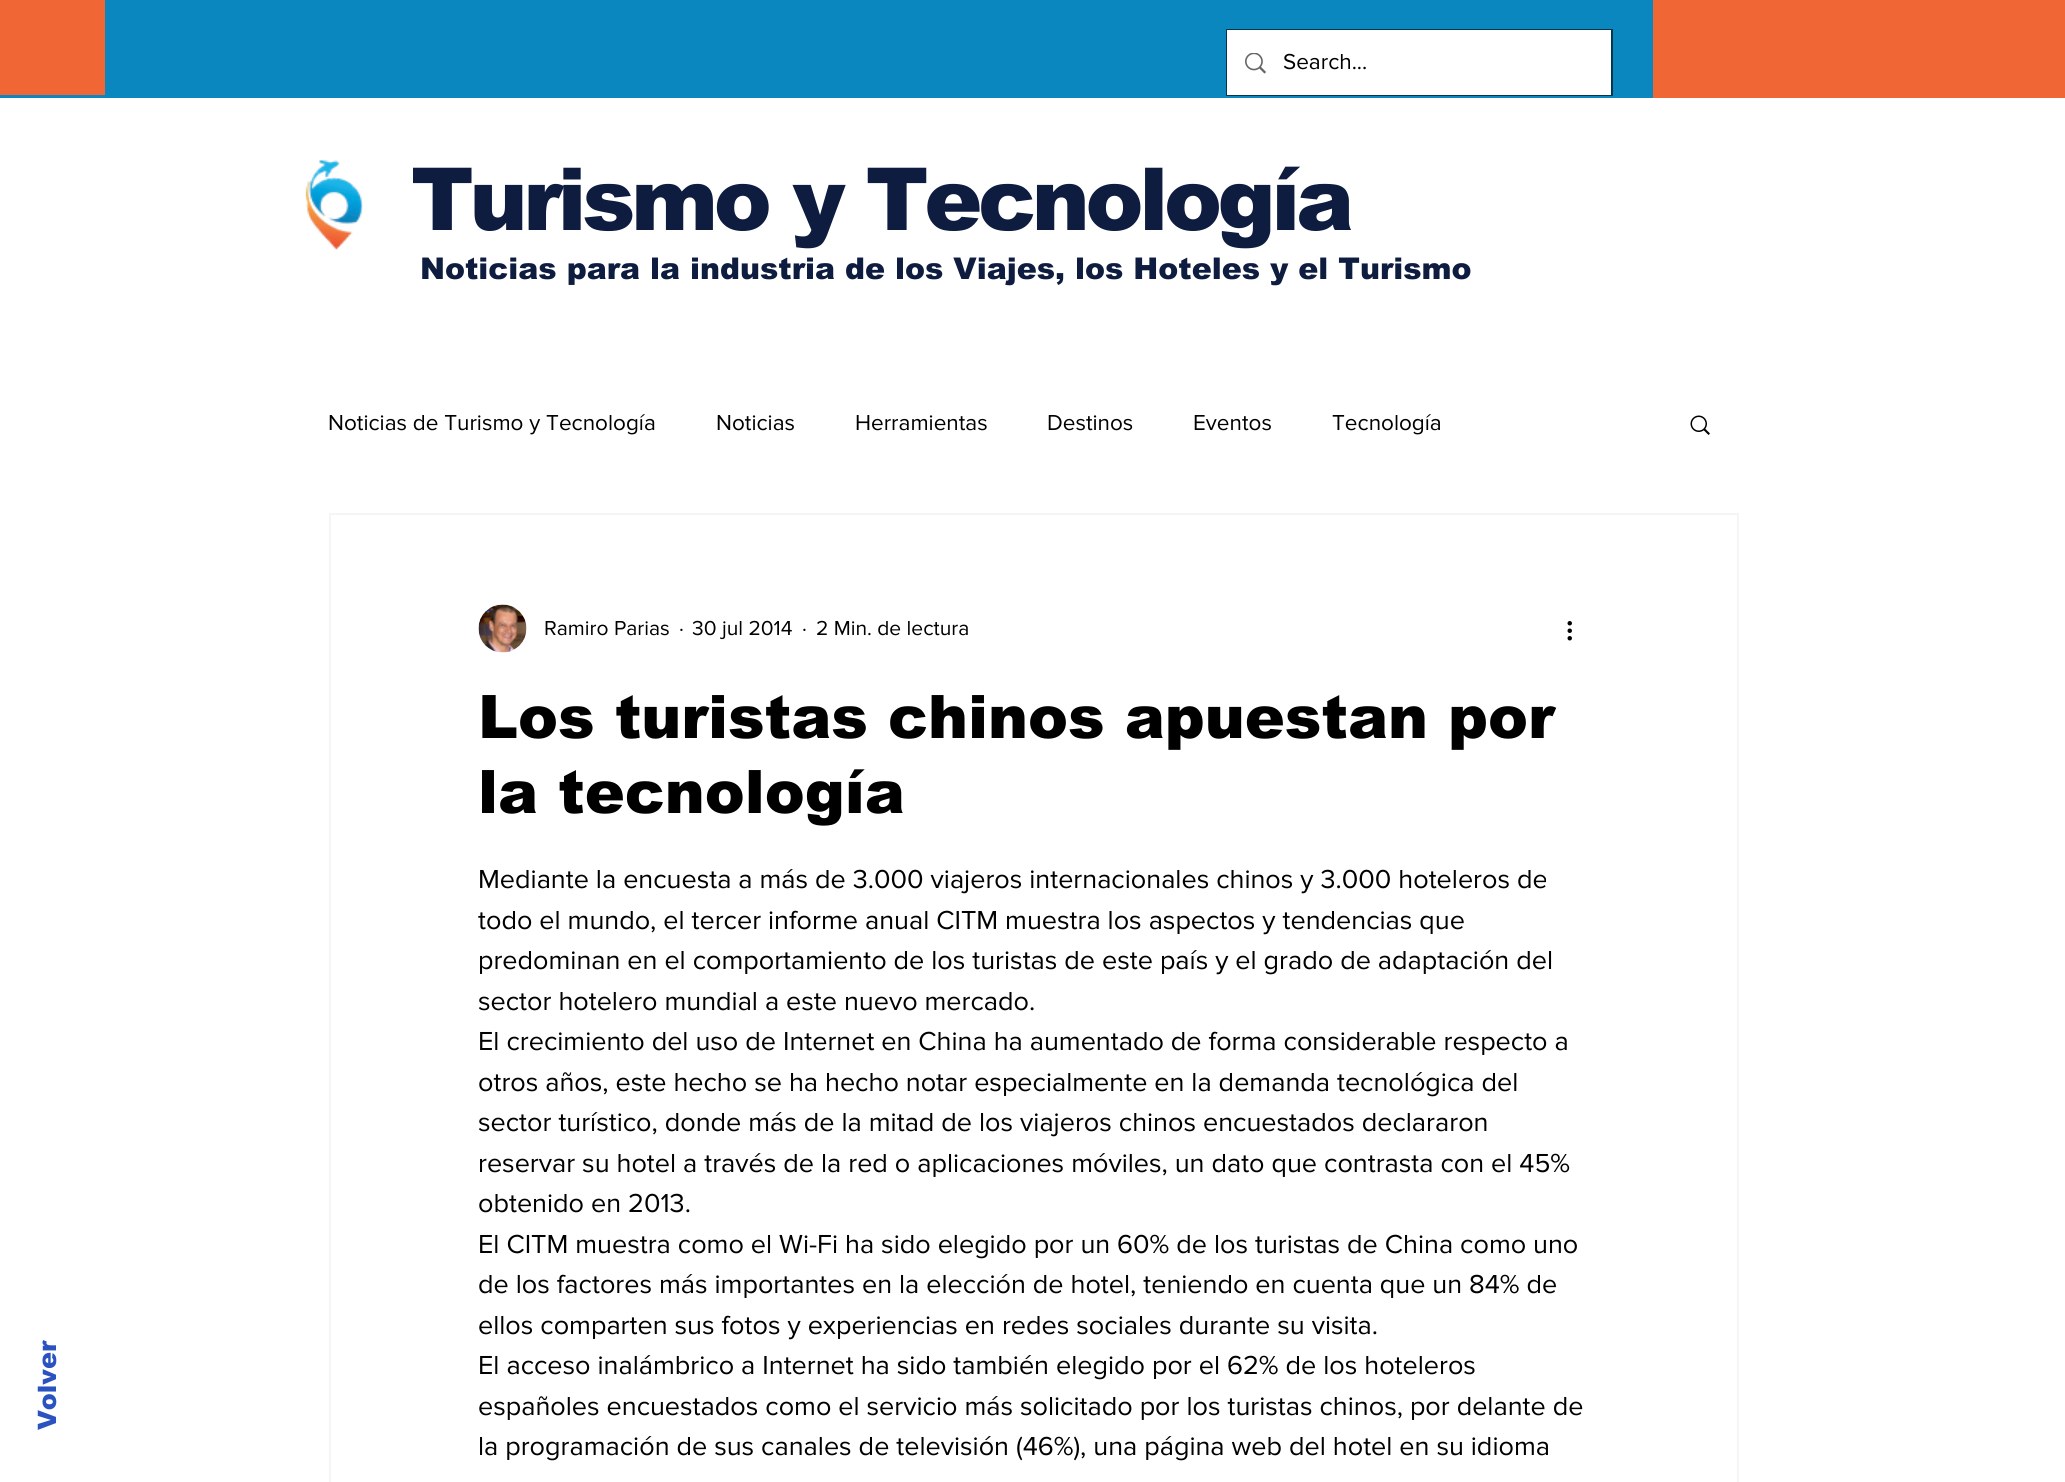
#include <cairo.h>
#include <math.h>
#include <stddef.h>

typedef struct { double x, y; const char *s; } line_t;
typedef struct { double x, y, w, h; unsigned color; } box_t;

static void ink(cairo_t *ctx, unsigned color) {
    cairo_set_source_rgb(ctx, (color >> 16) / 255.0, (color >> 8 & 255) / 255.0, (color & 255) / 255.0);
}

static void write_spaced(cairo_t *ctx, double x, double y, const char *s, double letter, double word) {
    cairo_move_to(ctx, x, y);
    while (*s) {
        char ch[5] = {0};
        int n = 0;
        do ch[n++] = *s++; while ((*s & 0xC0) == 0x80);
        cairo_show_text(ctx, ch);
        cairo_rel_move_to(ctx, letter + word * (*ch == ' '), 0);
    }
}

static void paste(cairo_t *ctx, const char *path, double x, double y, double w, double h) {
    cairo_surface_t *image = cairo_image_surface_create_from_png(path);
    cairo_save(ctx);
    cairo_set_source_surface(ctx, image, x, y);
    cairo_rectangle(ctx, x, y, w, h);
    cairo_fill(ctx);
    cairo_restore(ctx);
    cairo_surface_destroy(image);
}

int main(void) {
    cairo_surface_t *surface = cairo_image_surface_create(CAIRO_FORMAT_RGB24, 2065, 1482);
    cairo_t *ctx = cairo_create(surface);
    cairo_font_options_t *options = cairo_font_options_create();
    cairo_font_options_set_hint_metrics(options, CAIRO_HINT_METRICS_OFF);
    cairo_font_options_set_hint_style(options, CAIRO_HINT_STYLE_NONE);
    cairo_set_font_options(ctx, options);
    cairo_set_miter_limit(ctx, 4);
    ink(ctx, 0xFFFFFF);
    cairo_paint(ctx);
    {
        static const box_t items[] = {
            {0, 0, 1653, 98, 0x0A87BE},
            {0, 0, 105, 95, 0xF06635},
            {1653, 0, 412, 98, 0xF06635},
        };
        for (size_t i = 0; i < sizeof items / sizeof *items; i++) {
            ink(ctx, items[i].color);
            cairo_rectangle(ctx, items[i].x, items[i].y, items[i].w, items[i].h);
            cairo_fill(ctx);
        }
    }
    cairo_rectangle(ctx, 1227, 30, 385, 65);
    ink(ctx, 0x04364C);
    cairo_stroke(ctx);
    ink(ctx, 0xFFFFFF);
    cairo_rectangle(ctx, 1227, 30, 384, 65);
    cairo_fill(ctx);
    paste(ctx, "media/1.png", 1245, 53, 21, 21);
    cairo_select_font_face(ctx, "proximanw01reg", CAIRO_FONT_SLANT_NORMAL, CAIRO_FONT_WEIGHT_NORMAL);
    cairo_set_font_size(ctx, 22.5);
    ink(ctx, 0x000000);
    cairo_move_to(ctx, 1283, 69);
    cairo_show_text(ctx, "Search...");
    paste(ctx, "media/2.png", 305, 160, 58, 90);
    cairo_select_font_face(ctx, "arial Black", CAIRO_FONT_SLANT_NORMAL, CAIRO_FONT_WEIGHT_NORMAL);
    cairo_set_font_size(ctx, 87);
    ink(ctx, 0x0E1C40);
    write_spaced(ctx, 411, 230, "Turismo y Tecnología", -4.3, 0);
    cairo_set_font_size(ctx, 30);
    cairo_move_to(ctx, 420, 279);
    cairo_show_text(ctx, "Noticias para la industria de los Viajes, los Hoteles y el Turismo");
    cairo_set_font_size(ctx, 25.5);
    ink(ctx, 0x2A53C1);
    cairo_save(ctx);
    cairo_translate(ctx, 56, 1430);
    cairo_rotate(ctx, -90 * M_PI / 180);
    cairo_move_to(ctx, 0, 0);
    cairo_show_text(ctx, "Volver");
    cairo_restore(ctx);
    cairo_select_font_face(ctx, "proximanw01reg", CAIRO_FONT_SLANT_NORMAL, CAIRO_FONT_WEIGHT_NORMAL);
    cairo_set_font_size(ctx, 22.5);
    ink(ctx, 0x000000);
    {
        static const line_t items[] = {
            {328, 430, "Noticias de Turismo y Tecnología"},
            {716, 430, "Noticias"},
            {855, 430, "Herramientas"},
            {1047, 430, "Destinos"},
            {1193, 430, "Eventos"},
            {1332, 430, "Tecnología"},
        };
        for (size_t i = 0; i < sizeof items / sizeof *items; i++) {
            cairo_move_to(ctx, items[i].x, items[i].y);
            cairo_show_text(ctx, items[i].s);
        }
    }
    paste(ctx, "media/3.png", 1690, 415, 20, 20);
    cairo_rectangle(ctx, 330, 514, 1408, 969);
    ink(ctx, 0xF5F5F5);
    cairo_stroke(ctx);
    paste(ctx, "media/4.png", 478, 604, 49, 49);
    cairo_set_font_size(ctx, 21);
    ink(ctx, 0x000000);
    {
        static const line_t items[] = {
            {544, 635, "Ramiro Parias"},
            {679, 635, "·"},
            {692, 635, "30 jul 2014"},
            {802, 635, "·"},
            {816, 635, "2 Min. de lectura"},
        };
        for (size_t i = 0; i < sizeof items / sizeof *items; i++) {
            cairo_move_to(ctx, items[i].x, items[i].y);
            cairo_show_text(ctx, items[i].s);
        }
    }
    paste(ctx, "media/5.png", 1567, 621, 5, 20);
    cairo_select_font_face(ctx, "arial Black", CAIRO_FONT_SLANT_NORMAL, CAIRO_FONT_WEIGHT_NORMAL);
    cairo_set_font_size(ctx, 60);
    cairo_move_to(ctx, 478, 738);
    cairo_show_text(ctx, "Los turistas chinos apuestan por");
    cairo_move_to(ctx, 478, 813);
    cairo_show_text(ctx, "la tecnología");
    cairo_select_font_face(ctx, "proximanw01reg", CAIRO_FONT_SLANT_NORMAL, CAIRO_FONT_WEIGHT_NORMAL);
    cairo_set_font_size(ctx, 27);
    {
        static const line_t items[] = {
            {478, 888, "Mediante la encuesta a más de 3.000 viajeros internacionales chinos y 3.000 hoteleros de"},
            {478, 929, "todo el mundo, el tercer informe anual CITM muestra los aspectos y tendencias que"},
            {478, 969, "predominan en el comportamiento de los turistas de este país y el grado de adaptación del"},
            {478, 1010, "sector hotelero mundial a este nuevo mercado."},
            {478, 1050, "El crecimiento del uso de Internet en China ha aumentado de forma considerable respecto a"},
            {478, 1091, "otros años, este hecho se ha hecho notar especialmente en la demanda tecnológica del"},
            {478, 1131, "sector turístico, donde más de la mitad de los viajeros chinos encuestados declararon"},
            {478, 1172, "reservar su hotel a través de la red o aplicaciones móviles, un dato que contrasta con el 45%"},
            {478, 1212, "obtenido en 2013."},
            {478, 1253, "El CITM muestra como el Wi-Fi ha sido elegido por un 60% de los turistas de China como uno"},
            {478, 1293, "de los factores más importantes en la elección de hotel, teniendo en cuenta que un 84% de"},
            {478, 1334, "ellos comparten sus fotos y experiencias en redes sociales durante su visita."},
            {478, 1374, "El acceso inalámbrico a Internet ha sido también elegido por el 62% de los hoteleros"},
            {478, 1415, "españoles encuestados como el servicio más solicitado por los turistas chinos, por delante de"},
            {478, 1455, "la programación de sus canales de televisión (46%), una página web del hotel en su idioma"},
        };
        for (size_t i = 0; i < sizeof items / sizeof *items; i++) {
            cairo_move_to(ctx, items[i].x, items[i].y);
            cairo_show_text(ctx, items[i].s);
        }
    }
    cairo_surface_write_to_png(surface, "image.png");
    cairo_font_options_destroy(options);
    cairo_destroy(ctx);
    cairo_surface_destroy(surface);
    return 0;
}
